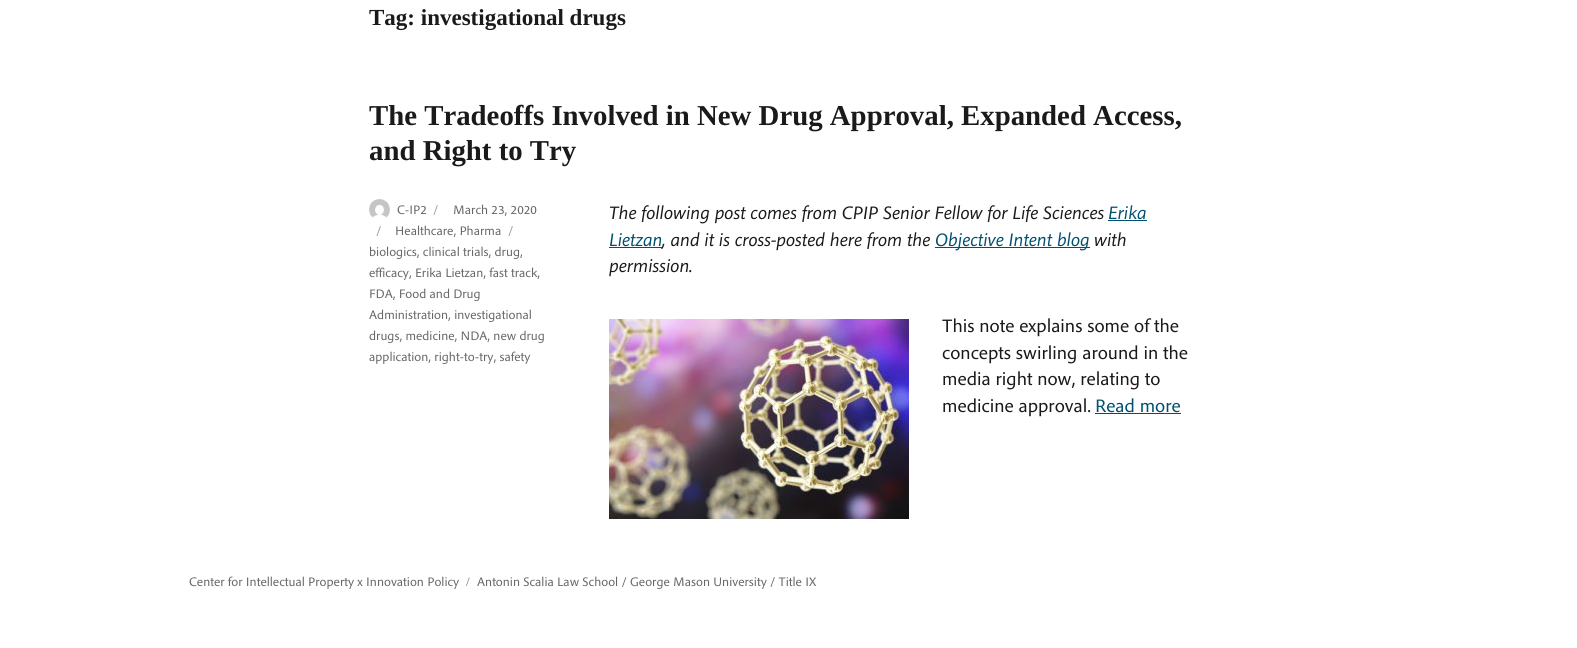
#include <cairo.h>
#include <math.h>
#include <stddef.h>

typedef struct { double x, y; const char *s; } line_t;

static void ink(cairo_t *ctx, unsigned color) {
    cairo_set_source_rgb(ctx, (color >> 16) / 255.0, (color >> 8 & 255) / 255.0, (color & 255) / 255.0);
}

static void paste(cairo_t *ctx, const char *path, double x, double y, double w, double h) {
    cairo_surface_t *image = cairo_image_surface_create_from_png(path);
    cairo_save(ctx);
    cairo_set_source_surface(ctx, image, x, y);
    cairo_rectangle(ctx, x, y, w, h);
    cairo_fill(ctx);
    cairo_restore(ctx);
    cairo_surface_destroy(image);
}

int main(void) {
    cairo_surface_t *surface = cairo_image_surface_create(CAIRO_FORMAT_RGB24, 1577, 648);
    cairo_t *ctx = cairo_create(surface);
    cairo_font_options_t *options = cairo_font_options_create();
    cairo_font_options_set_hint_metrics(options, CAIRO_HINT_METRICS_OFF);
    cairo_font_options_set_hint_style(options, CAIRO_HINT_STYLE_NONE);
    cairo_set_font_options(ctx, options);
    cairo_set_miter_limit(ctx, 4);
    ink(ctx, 0xFFFFFF);
    cairo_paint(ctx);
    cairo_select_font_face(ctx, "Liberation Serif", CAIRO_FONT_SLANT_NORMAL, CAIRO_FONT_WEIGHT_BOLD);
    cairo_set_font_size(ctx, 23);
    ink(ctx, 0x1A1A1A);
    cairo_move_to(ctx, 369, 25);
    cairo_show_text(ctx, "Tag: investigational drugs");
    cairo_set_font_size(ctx, 28.8);
    cairo_move_to(ctx, 369, 125);
    cairo_show_text(ctx, "The Tradeoffs Involved in New Drug Approval, Expanded Access,");
    cairo_move_to(ctx, 369, 160);
    cairo_show_text(ctx, "and Right to Try");
    cairo_select_font_face(ctx, "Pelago", CAIRO_FONT_SLANT_NORMAL, CAIRO_FONT_WEIGHT_NORMAL);
    cairo_set_font_size(ctx, 13);
    ink(ctx, 0x686868);
    cairo_move_to(ctx, 453, 214);
    cairo_show_text(ctx, "March 23, 2020");
    ink(ctx, 0x959595);
    cairo_move_to(ctx, 376, 235);
    cairo_show_text(ctx, "/");
    paste(ctx, "media/1.png", 369, 199, 21, 19);
    ink(ctx, 0x686868);
    cairo_move_to(ctx, 397, 214);
    cairo_show_text(ctx, "C-IP2");
    ink(ctx, 0x959595);
    cairo_move_to(ctx, 433, 214);
    cairo_show_text(ctx, "/");
    ink(ctx, 0x686868);
    cairo_move_to(ctx, 395, 235);
    cairo_show_text(ctx, "Healthcare, Pharma");
    ink(ctx, 0x959595);
    cairo_move_to(ctx, 508, 235);
    cairo_show_text(ctx, "/");
    ink(ctx, 0x686868);
    {
        static const line_t items[] = {
            {369, 256, "biologics, clinical trials, drug,"},
            {369, 277, "efficacy, Erika Lietzan, fast track,"},
            {369, 298, "FDA, Food and Drug"},
            {369, 319, "Administration, investigational"},
            {369, 340, "drugs, medicine, NDA, new drug"},
            {369, 361, "application, right-to-try, safety"},
        };
        for (size_t i = 0; i < sizeof items / sizeof *items; i++) {
            cairo_move_to(ctx, items[i].x, items[i].y);
            cairo_show_text(ctx, items[i].s);
        }
    }
    cairo_select_font_face(ctx, "Pelago", CAIRO_FONT_SLANT_ITALIC, CAIRO_FONT_WEIGHT_NORMAL);
    cairo_set_font_size(ctx, 19);
    ink(ctx, 0x1A1A1A);
    cairo_move_to(ctx, 609, 219);
    cairo_show_text(ctx, "The following post comes from CPIP Senior Fellow for Life Sciences");
    ink(ctx, 0x004F71);
    cairo_rectangle(ctx, 1108, 220, 39, 1);
    cairo_fill(ctx);
    cairo_move_to(ctx, 1108, 219);
    cairo_show_text(ctx, "Erika");
    cairo_move_to(ctx, 609, 246);
    cairo_show_text(ctx, "Lietzan");
    cairo_rectangle(ctx, 609, 247, 53, 1);
    cairo_fill(ctx);
    ink(ctx, 0x1A1A1A);
    cairo_move_to(ctx, 662, 246);
    cairo_show_text(ctx, ", and it is cross-posted here from the");
    ink(ctx, 0x004F71);
    cairo_rectangle(ctx, 935, 247, 155, 1);
    cairo_fill(ctx);
    cairo_move_to(ctx, 935, 246);
    cairo_show_text(ctx, "Objective Intent blog");
    ink(ctx, 0x1A1A1A);
    cairo_move_to(ctx, 1094, 246);
    cairo_show_text(ctx, "with");
    cairo_move_to(ctx, 609, 272);
    cairo_show_text(ctx, "permission.");
    paste(ctx, "media/2.png", 609, 319, 300, 200);
    cairo_select_font_face(ctx, "Pelago", CAIRO_FONT_SLANT_NORMAL, CAIRO_FONT_WEIGHT_NORMAL);
    {
        static const line_t items[] = {
            {942, 332, "This note explains some of the"},
            {942, 359, "concepts swirling around in the"},
            {942, 385, "media right now, relating to"},
            {942, 412, "medicine approval."},
        };
        for (size_t i = 0; i < sizeof items / sizeof *items; i++) {
            cairo_move_to(ctx, items[i].x, items[i].y);
            cairo_show_text(ctx, items[i].s);
        }
    }
    ink(ctx, 0x004F71);
    cairo_move_to(ctx, 1095, 412);
    cairo_show_text(ctx, "Read more");
    cairo_rectangle(ctx, 1095, 413, 86, 1);
    cairo_fill(ctx);
    cairo_set_font_size(ctx, 13);
    ink(ctx, 0x686868);
    cairo_move_to(ctx, 189, 586);
    cairo_show_text(ctx, "Center for Intellectual Property x Innovation Policy");
    cairo_select_font_face(ctx, "Liberation Serif", CAIRO_FONT_SLANT_NORMAL, CAIRO_FONT_WEIGHT_BOLD);
    ink(ctx, 0x959595);
    cairo_move_to(ctx, 466, 586);
    cairo_show_text(ctx, "/");
    cairo_select_font_face(ctx, "Pelago", CAIRO_FONT_SLANT_NORMAL, CAIRO_FONT_WEIGHT_NORMAL);
    ink(ctx, 0x686868);
    cairo_move_to(ctx, 477, 586);
    cairo_show_text(ctx, "Antonin Scalia Law School / George Mason University / Title IX");
    cairo_surface_write_to_png(surface, "image.png");
    cairo_font_options_destroy(options);
    cairo_destroy(ctx);
    cairo_surface_destroy(surface);
    return 0;
}
